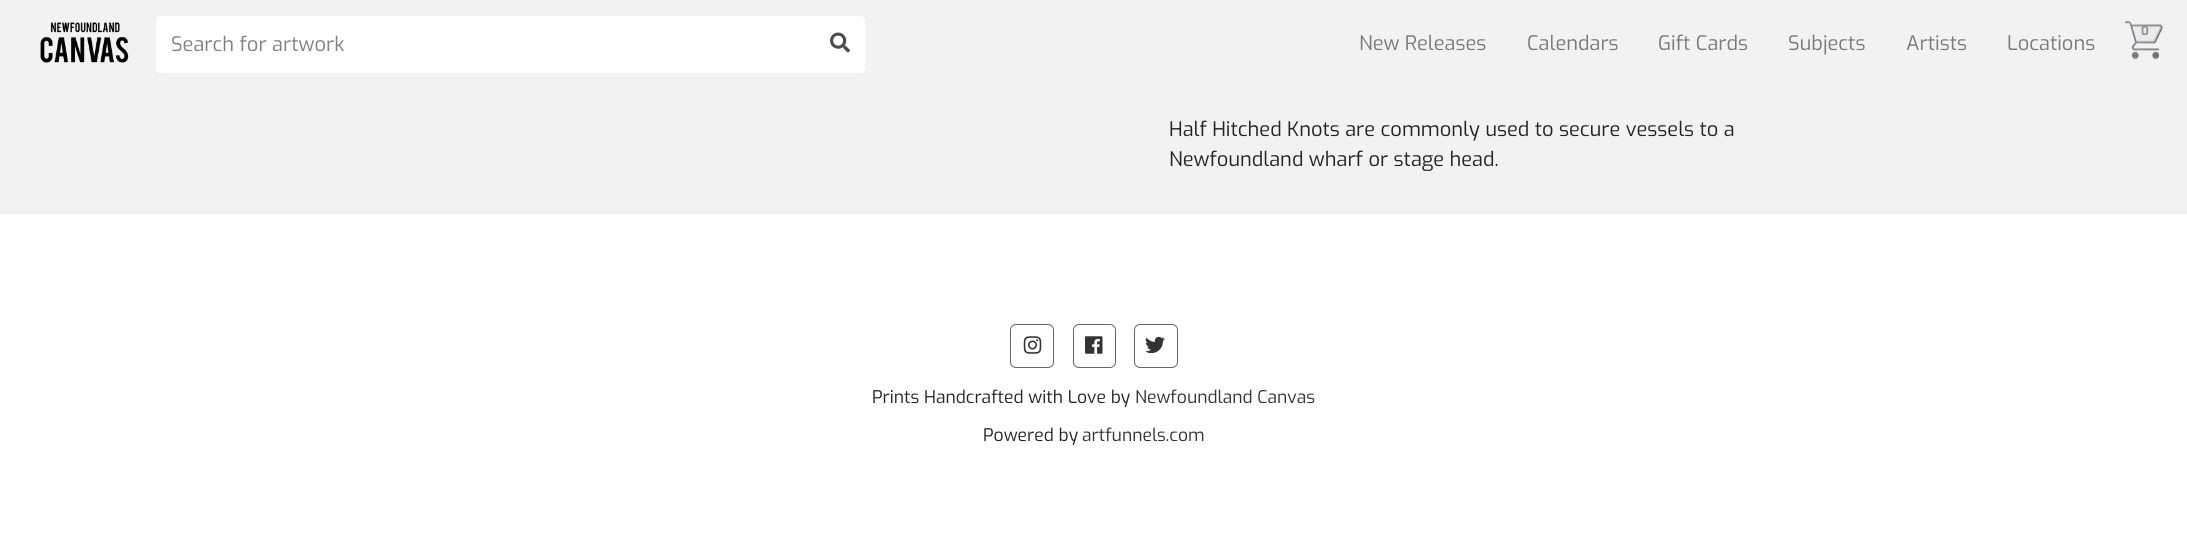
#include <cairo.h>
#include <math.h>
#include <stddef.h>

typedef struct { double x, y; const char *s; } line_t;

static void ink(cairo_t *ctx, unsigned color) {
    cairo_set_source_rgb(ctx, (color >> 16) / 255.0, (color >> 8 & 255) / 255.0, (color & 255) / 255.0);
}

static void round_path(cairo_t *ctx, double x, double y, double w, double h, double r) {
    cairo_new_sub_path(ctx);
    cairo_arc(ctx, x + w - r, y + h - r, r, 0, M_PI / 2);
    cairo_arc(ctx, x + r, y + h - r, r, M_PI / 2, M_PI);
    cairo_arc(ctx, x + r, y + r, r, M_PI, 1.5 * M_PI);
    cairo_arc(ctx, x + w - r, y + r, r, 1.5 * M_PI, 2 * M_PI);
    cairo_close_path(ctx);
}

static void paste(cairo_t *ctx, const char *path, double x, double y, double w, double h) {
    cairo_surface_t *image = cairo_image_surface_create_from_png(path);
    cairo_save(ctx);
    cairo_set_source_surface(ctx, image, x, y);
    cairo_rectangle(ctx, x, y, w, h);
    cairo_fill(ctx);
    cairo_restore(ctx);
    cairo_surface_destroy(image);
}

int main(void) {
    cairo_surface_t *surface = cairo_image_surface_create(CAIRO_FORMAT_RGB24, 2187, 555);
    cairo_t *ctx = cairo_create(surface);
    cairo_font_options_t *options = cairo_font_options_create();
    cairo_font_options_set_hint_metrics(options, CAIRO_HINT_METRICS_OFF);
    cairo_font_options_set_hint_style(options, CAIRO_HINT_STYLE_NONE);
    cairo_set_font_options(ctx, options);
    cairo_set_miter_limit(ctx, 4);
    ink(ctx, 0xFFFFFF);
    cairo_paint(ctx);
    ink(ctx, 0xF2F2F2);
    cairo_rectangle(ctx, 0, 0, 2187, 214);
    cairo_fill(ctx);
    paste(ctx, "media/1.png", 40, 22, 89, 41);
    ink(ctx, 0xFFFFFF);
    cairo_new_path(ctx);
    cairo_move_to(ctx, 161, 16);
    cairo_line_to(ctx, 816, 16);
    cairo_line_to(ctx, 816, 73);
    cairo_line_to(ctx, 161, 73);
    cairo_curve_to(ctx, 158, 73, 156, 71, 156, 68);
    cairo_line_to(ctx, 156, 21);
    cairo_curve_to(ctx, 156, 18, 158, 16, 161, 16);
    cairo_close_path(ctx);
    cairo_fill(ctx);
    cairo_select_font_face(ctx, "Exo", CAIRO_FONT_SLANT_NORMAL, CAIRO_FONT_WEIGHT_NORMAL);
    cairo_set_font_size(ctx, 20);
    ink(ctx, 0x808080);
    cairo_move_to(ctx, 171, 51);
    cairo_show_text(ctx, "Search for artwork");
    ink(ctx, 0xFFFFFF);
    cairo_new_path(ctx);
    cairo_move_to(ctx, 815, 16);
    cairo_line_to(ctx, 860, 16);
    cairo_curve_to(ctx, 863, 16, 865, 18, 865, 21);
    cairo_line_to(ctx, 865, 68);
    cairo_curve_to(ctx, 865, 71, 863, 73, 860, 73);
    cairo_line_to(ctx, 815, 73);
    cairo_close_path(ctx);
    cairo_fill(ctx);
    paste(ctx, "media/2.png", 830, 32, 20, 21);
    paste(ctx, "media/3.png", 2125, 21, 38, 39);
    cairo_select_font_face(ctx, "Exo", CAIRO_FONT_SLANT_NORMAL, CAIRO_FONT_WEIGHT_BOLD);
    cairo_set_font_size(ctx, 12);
    ink(ctx, 0x919292);
    cairo_move_to(ctx, 2141, 35);
    cairo_show_text(ctx, "0");
    cairo_select_font_face(ctx, "Exo", CAIRO_FONT_SLANT_NORMAL, CAIRO_FONT_WEIGHT_NORMAL);
    cairo_set_font_size(ctx, 20);
    ink(ctx, 0x797979);
    {
        static const line_t items[] = {
            {1359, 50, "New Releases"},
            {1527, 50, "Calendars"},
            {1658, 50, "Gift Cards"},
            {1788, 50, "Subjects"},
            {1906, 50, "Artists"},
            {2007, 50, "Locations"},
        };
        for (size_t i = 0; i < sizeof items / sizeof *items; i++) {
            cairo_move_to(ctx, items[i].x, items[i].y);
            cairo_show_text(ctx, items[i].s);
        }
    }
    ink(ctx, 0x212529);
    cairo_move_to(ctx, 1169, 136);
    cairo_show_text(ctx, "Half Hitched Knots are commonly used to secure vessels to a");
    cairo_move_to(ctx, 1169, 166);
    cairo_show_text(ctx, "Newfoundland wharf or stage head.");
    round_path(ctx, 1010.5, 324.5, 43, 43, 5.5);
    ink(ctx, 0x666666);
    cairo_set_line_width(ctx, 1);
    cairo_stroke(ctx);
    paste(ctx, "media/4.png", 1023, 336, 19, 18);
    round_path(ctx, 1073.5, 324.5, 42, 43, 5.5);
    cairo_stroke(ctx);
    paste(ctx, "media/5.png", 1085, 336, 18, 18);
    round_path(ctx, 1134.5, 324.5, 43, 43, 5.5);
    cairo_stroke(ctx);
    paste(ctx, "media/6.png", 1145, 336, 20, 18);
    cairo_set_font_size(ctx, 17.5);
    ink(ctx, 0x212529);
    cairo_move_to(ctx, 872, 403);
    cairo_show_text(ctx, "Prints Handcrafted with Love by");
    ink(ctx, 0x333333);
    cairo_move_to(ctx, 1135, 403);
    cairo_show_text(ctx, "Newfoundland Canvas");
    ink(ctx, 0x212529);
    cairo_move_to(ctx, 983, 441);
    cairo_show_text(ctx, "Powered by");
    ink(ctx, 0x333333);
    cairo_move_to(ctx, 1082, 441);
    cairo_show_text(ctx, "artfunnels.com");
    cairo_surface_write_to_png(surface, "image.png");
    cairo_font_options_destroy(options);
    cairo_destroy(ctx);
    cairo_surface_destroy(surface);
    return 0;
}
